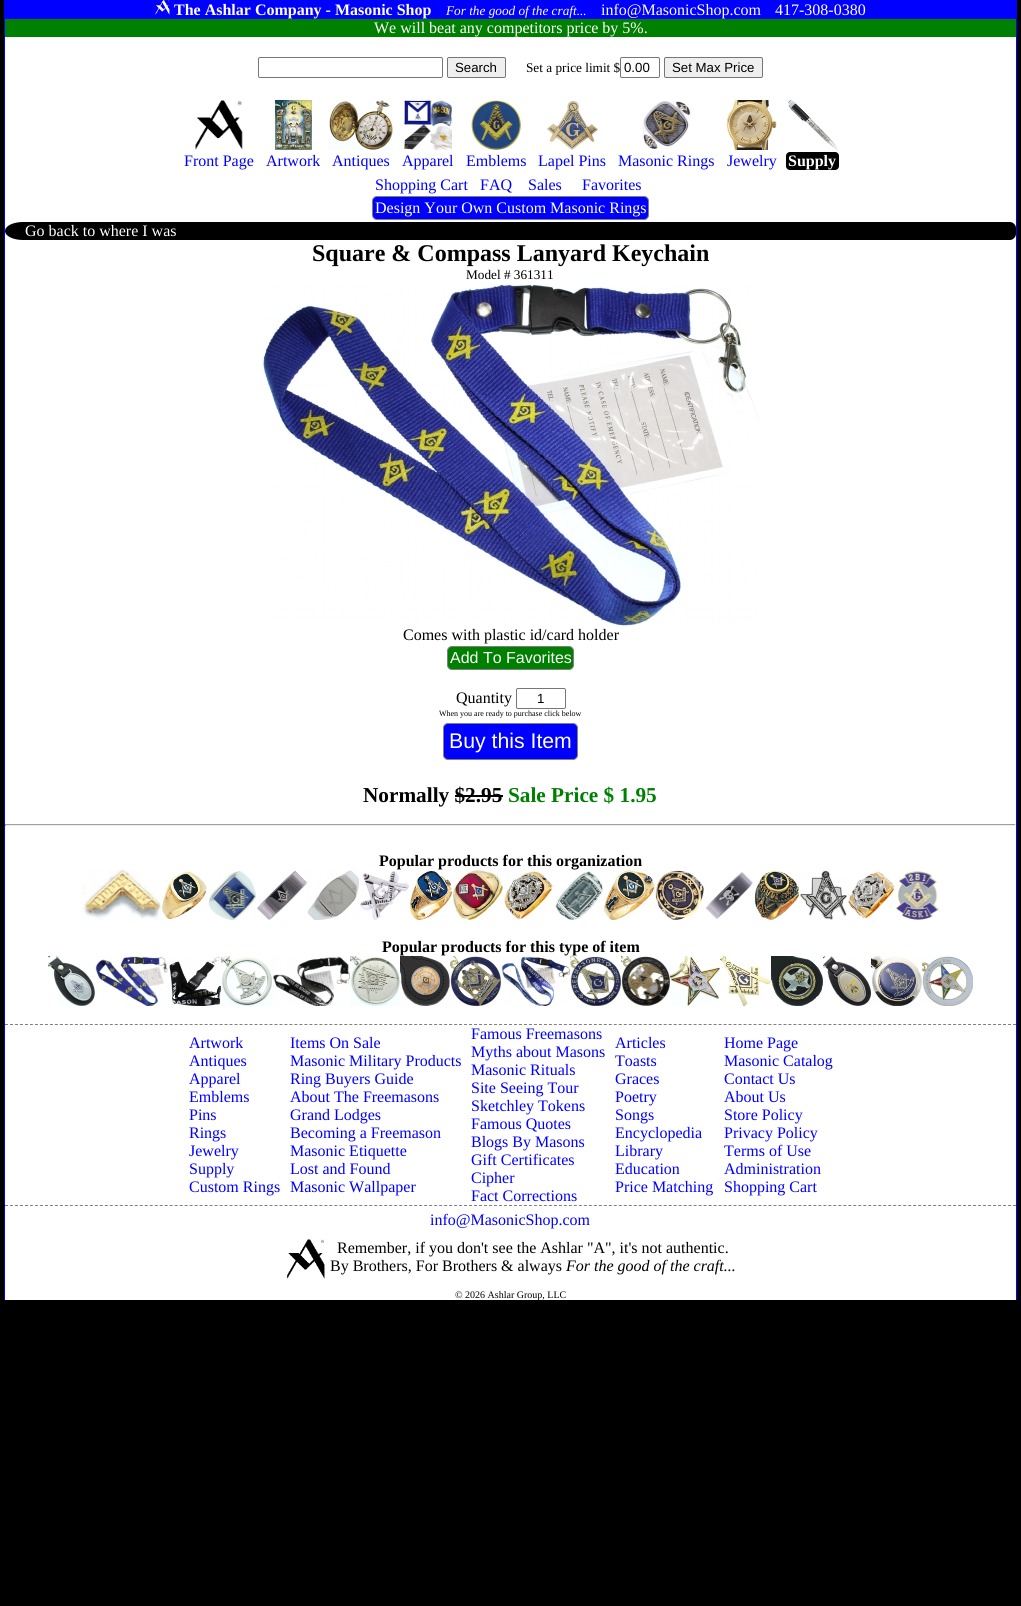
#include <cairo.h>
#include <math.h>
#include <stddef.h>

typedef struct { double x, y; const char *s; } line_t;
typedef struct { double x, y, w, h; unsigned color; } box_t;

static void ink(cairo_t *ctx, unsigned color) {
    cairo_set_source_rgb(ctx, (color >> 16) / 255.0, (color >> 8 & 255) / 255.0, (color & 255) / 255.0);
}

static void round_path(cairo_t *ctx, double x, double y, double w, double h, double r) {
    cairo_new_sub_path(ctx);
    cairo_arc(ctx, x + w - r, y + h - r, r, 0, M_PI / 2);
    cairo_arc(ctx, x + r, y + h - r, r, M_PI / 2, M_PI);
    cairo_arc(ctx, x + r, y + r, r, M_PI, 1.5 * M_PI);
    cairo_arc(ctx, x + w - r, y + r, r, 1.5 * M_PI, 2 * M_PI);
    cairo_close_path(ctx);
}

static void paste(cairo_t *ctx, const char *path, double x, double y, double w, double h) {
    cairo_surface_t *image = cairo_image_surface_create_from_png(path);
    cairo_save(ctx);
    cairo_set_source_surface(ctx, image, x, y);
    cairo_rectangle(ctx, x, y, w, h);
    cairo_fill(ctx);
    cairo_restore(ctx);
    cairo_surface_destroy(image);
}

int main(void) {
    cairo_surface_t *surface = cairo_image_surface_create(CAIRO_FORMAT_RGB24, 1021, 1606);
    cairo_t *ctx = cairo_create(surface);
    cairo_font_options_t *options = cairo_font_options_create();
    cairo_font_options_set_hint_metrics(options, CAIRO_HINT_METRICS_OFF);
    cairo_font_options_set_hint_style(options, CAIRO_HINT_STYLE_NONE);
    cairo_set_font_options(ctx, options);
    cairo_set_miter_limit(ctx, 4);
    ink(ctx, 0x000000);
    cairo_paint(ctx);
    {
        static const box_t items[] = {
            {5, 37, 1011, 1263, 0xFFFFFF},
            {1016, 0, 1, 1300, 0x0000FF},
            {4, 0, 1, 1300, 0x0000FF},
            {5, 0, 1011, 19, 0x0000FF},
        };
        for (size_t i = 0; i < sizeof items / sizeof *items; i++) {
            ink(ctx, items[i].color);
            cairo_rectangle(ctx, items[i].x, items[i].y, items[i].w, items[i].h);
            cairo_fill(ctx);
        }
    }
    paste(ctx, "media/1.png", 155, 0, 15, 15);
    cairo_select_font_face(ctx, "Liberation Serif", CAIRO_FONT_SLANT_NORMAL, CAIRO_FONT_WEIGHT_BOLD);
    cairo_set_font_size(ctx, 16);
    ink(ctx, 0xFFFFFF);
    cairo_move_to(ctx, 174, 15);
    cairo_show_text(ctx, "The Ashlar Company - Masonic Shop");
    cairo_select_font_face(ctx, "Liberation Serif", CAIRO_FONT_SLANT_ITALIC, CAIRO_FONT_WEIGHT_NORMAL);
    cairo_set_font_size(ctx, 13.25);
    cairo_move_to(ctx, 446, 15);
    cairo_show_text(ctx, "For the good of the craft...");
    cairo_select_font_face(ctx, "Liberation Serif", CAIRO_FONT_SLANT_NORMAL, CAIRO_FONT_WEIGHT_NORMAL);
    cairo_set_font_size(ctx, 16);
    cairo_move_to(ctx, 601, 15);
    cairo_show_text(ctx, "info@MasonicShop.com");
    cairo_move_to(ctx, 775, 15);
    cairo_show_text(ctx, "417-308-0380");
    ink(ctx, 0x008000);
    cairo_rectangle(ctx, 5, 19, 1011, 18);
    cairo_fill(ctx);
    ink(ctx, 0xFFFFFF);
    cairo_move_to(ctx, 374, 33);
    cairo_show_text(ctx, "We will beat any competitors price by 5%.");
    round_path(ctx, 258.5, 57.5, 184, 20, 1.5);
    ink(ctx, 0x767676);
    cairo_set_line_width(ctx, 1);
    cairo_stroke(ctx);
    ink(ctx, 0xEFEFEF);
    round_path(ctx, 447.5, 57.5, 58, 20, 1.5);
    cairo_fill_preserve(ctx);
    ink(ctx, 0x767676);
    cairo_stroke(ctx);
    cairo_select_font_face(ctx, "Liberation Sans", CAIRO_FONT_SLANT_NORMAL, CAIRO_FONT_WEIGHT_NORMAL);
    cairo_set_font_size(ctx, 13.25);
    ink(ctx, 0x000000);
    cairo_move_to(ctx, 455, 72);
    cairo_show_text(ctx, "Search");
    cairo_select_font_face(ctx, "Liberation Serif", CAIRO_FONT_SLANT_NORMAL, CAIRO_FONT_WEIGHT_NORMAL);
    cairo_move_to(ctx, 526, 72);
    cairo_show_text(ctx, "Set a price limit $");
    round_path(ctx, 620.5, 57.5, 39, 20, 1.5);
    ink(ctx, 0x767676);
    cairo_stroke(ctx);
    cairo_select_font_face(ctx, "Liberation Sans", CAIRO_FONT_SLANT_NORMAL, CAIRO_FONT_WEIGHT_NORMAL);
    ink(ctx, 0x000000);
    cairo_move_to(ctx, 624, 72);
    cairo_show_text(ctx, "0.00");
    ink(ctx, 0xEFEFEF);
    round_path(ctx, 664.5, 57.5, 98, 20, 1.5);
    cairo_fill_preserve(ctx);
    ink(ctx, 0x767676);
    cairo_stroke(ctx);
    ink(ctx, 0x000000);
    cairo_move_to(ctx, 672, 72);
    cairo_show_text(ctx, "Set Max Price");
    paste(ctx, "media/2.png", 195, 100, 48, 50);
    cairo_select_font_face(ctx, "Liberation Serif", CAIRO_FONT_SLANT_NORMAL, CAIRO_FONT_WEIGHT_NORMAL);
    cairo_set_font_size(ctx, 16);
    ink(ctx, 0x0000FF);
    cairo_move_to(ctx, 184, 166);
    cairo_show_text(ctx, "Front Page");
    paste(ctx, "media/3.png", 275, 100, 37, 50);
    cairo_move_to(ctx, 266, 166);
    cairo_show_text(ctx, "Artwork");
    paste(ctx, "media/4.png", 329, 100, 64, 50);
    cairo_move_to(ctx, 332, 166);
    cairo_show_text(ctx, "Antiques");
    paste(ctx, "media/5.png", 404, 100, 48, 50);
    cairo_move_to(ctx, 402, 166);
    cairo_show_text(ctx, "Apparel");
    paste(ctx, "media/6.png", 471, 100, 50, 50);
    cairo_move_to(ctx, 466, 166);
    cairo_show_text(ctx, "Emblems");
    paste(ctx, "media/7.png", 547, 101, 51, 49);
    cairo_move_to(ctx, 538, 166);
    cairo_show_text(ctx, "Lapel Pins");
    paste(ctx, "media/8.png", 643, 101, 48, 48);
    cairo_move_to(ctx, 618, 166);
    cairo_show_text(ctx, "Masonic Rings");
    paste(ctx, "media/9.png", 726, 100, 51, 50);
    cairo_move_to(ctx, 727, 166);
    cairo_show_text(ctx, "Jewelry");
    paste(ctx, "media/10.png", 788, 100, 50, 50);
    ink(ctx, 0x000000);
    round_path(ctx, 786, 152, 53, 18, 4);
    cairo_fill(ctx);
    cairo_select_font_face(ctx, "Liberation Serif", CAIRO_FONT_SLANT_NORMAL, CAIRO_FONT_WEIGHT_BOLD);
    ink(ctx, 0xFFFFFF);
    cairo_move_to(ctx, 788, 166);
    cairo_show_text(ctx, "Supply");
    cairo_select_font_face(ctx, "Liberation Serif", CAIRO_FONT_SLANT_NORMAL, CAIRO_FONT_WEIGHT_NORMAL);
    ink(ctx, 0x0000FF);
    {
        static const line_t items[] = {
            {375, 190, "Shopping Cart"},
            {480, 190, "FAQ"},
            {528, 190, "Sales"},
            {582, 190, "Favorites"},
        };
        for (size_t i = 0; i < sizeof items / sizeof *items; i++) {
            cairo_move_to(ctx, items[i].x, items[i].y);
            cairo_show_text(ctx, items[i].s);
        }
    }
    round_path(ctx, 372.5, 196.5, 276, 23, 4.5);
    cairo_fill_preserve(ctx);
    ink(ctx, 0x808080);
    cairo_stroke(ctx);
    ink(ctx, 0xFFFFFF);
    cairo_move_to(ctx, 375, 213);
    cairo_show_text(ctx, "Design Your Own Custom Masonic Rings");
    ink(ctx, 0x000000);
    cairo_new_path(ctx);
    cairo_move_to(ctx, 23, 222);
    cairo_line_to(ctx, 1010, 222);
    cairo_curve_to(ctx, 1013, 222, 1016, 225, 1016, 228);
    cairo_line_to(ctx, 1016, 234);
    cairo_curve_to(ctx, 1016, 237, 1013, 240, 1010, 240);
    cairo_line_to(ctx, 23, 240);
    cairo_curve_to(ctx, 13, 240, 5, 236, 5, 231);
    cairo_curve_to(ctx, 5, 226, 13, 222, 23, 222);
    cairo_close_path(ctx);
    cairo_fill(ctx);
    ink(ctx, 0xFFFFFF);
    cairo_move_to(ctx, 25, 236);
    cairo_show_text(ctx, "Go back to where I was");
    cairo_select_font_face(ctx, "Liberation Serif", CAIRO_FONT_SLANT_NORMAL, CAIRO_FONT_WEIGHT_BOLD);
    cairo_set_font_size(ctx, 24);
    ink(ctx, 0x000000);
    cairo_move_to(ctx, 312, 261);
    cairo_show_text(ctx, "Square & Compass Lanyard Keychain");
    cairo_select_font_face(ctx, "Liberation Serif", CAIRO_FONT_SLANT_NORMAL, CAIRO_FONT_WEIGHT_NORMAL);
    cairo_set_font_size(ctx, 13.25);
    cairo_move_to(ctx, 466, 279);
    cairo_show_text(ctx, "Model # 361311");
    paste(ctx, "media/11.png", 262, 284, 497, 342);
    cairo_set_font_size(ctx, 16);
    cairo_move_to(ctx, 403, 640);
    cairo_show_text(ctx, "Comes with plastic id/card holder");
    ink(ctx, 0x008000);
    round_path(ctx, 447.5, 646.5, 126, 23, 4.5);
    cairo_fill_preserve(ctx);
    ink(ctx, 0x808080);
    cairo_stroke(ctx);
    cairo_select_font_face(ctx, "Liberation Sans", CAIRO_FONT_SLANT_NORMAL, CAIRO_FONT_WEIGHT_NORMAL);
    ink(ctx, 0xFFFFFF);
    cairo_move_to(ctx, 450, 663);
    cairo_show_text(ctx, "Add To Favorites");
    cairo_select_font_face(ctx, "Liberation Serif", CAIRO_FONT_SLANT_NORMAL, CAIRO_FONT_WEIGHT_NORMAL);
    ink(ctx, 0x000000);
    cairo_move_to(ctx, 456, 703);
    cairo_show_text(ctx, "Quantity");
    round_path(ctx, 516.5, 688.5, 49, 20, 1.5);
    ink(ctx, 0x767676);
    cairo_stroke(ctx);
    cairo_select_font_face(ctx, "Liberation Sans", CAIRO_FONT_SLANT_NORMAL, CAIRO_FONT_WEIGHT_NORMAL);
    cairo_set_font_size(ctx, 13.25);
    ink(ctx, 0x000000);
    cairo_move_to(ctx, 537, 703);
    cairo_show_text(ctx, "1");
    cairo_select_font_face(ctx, "Liberation Serif", CAIRO_FONT_SLANT_NORMAL, CAIRO_FONT_WEIGHT_NORMAL);
    cairo_set_font_size(ctx, 8);
    cairo_move_to(ctx, 439, 716);
    cairo_show_text(ctx, "When you are ready to purchase click below");
    ink(ctx, 0x0000FF);
    round_path(ctx, 443.5, 723.5, 134, 36, 4.5);
    cairo_fill_preserve(ctx);
    ink(ctx, 0x808080);
    cairo_stroke(ctx);
    cairo_select_font_face(ctx, "Liberation Sans", CAIRO_FONT_SLANT_NORMAL, CAIRO_FONT_WEIGHT_NORMAL);
    cairo_set_font_size(ctx, 21.25);
    ink(ctx, 0xFFFFFF);
    cairo_move_to(ctx, 449, 748);
    cairo_show_text(ctx, "Buy this Item");
    cairo_select_font_face(ctx, "Liberation Serif", CAIRO_FONT_SLANT_NORMAL, CAIRO_FONT_WEIGHT_BOLD);
    ink(ctx, 0x000000);
    cairo_move_to(ctx, 363, 802);
    cairo_show_text(ctx, "Normally $2.95");
    ink(ctx, 0x008000);
    cairo_move_to(ctx, 508, 802);
    cairo_show_text(ctx, "Sale Price $ 1.95");
    {
        static const box_t items[] = {
            {455, 795, 48, 2, 0x000000},
            {5, 824, 1011, 1, 0x9F9F9F},
            {1015, 824, 1, 2, 0xEEEEEE},
            {5, 825, 1011, 1, 0xEEEEEE},
            {5, 824, 1, 2, 0x9F9F9F},
        };
        for (size_t i = 0; i < sizeof items / sizeof *items; i++) {
            ink(ctx, items[i].color);
            cairo_rectangle(ctx, items[i].x, items[i].y, items[i].w, items[i].h);
            cairo_fill(ctx);
        }
    }
    cairo_set_font_size(ctx, 16);
    ink(ctx, 0x000000);
    cairo_move_to(ctx, 379, 866);
    cairo_show_text(ctx, "Popular products for this organization");
    paste(ctx, "media/12.png", 82, 870, 79, 50);
    paste(ctx, "media/13.png", 161, 871, 46, 49);
    paste(ctx, "media/14.png", 208, 871, 48, 49);
    paste(ctx, "media/15.png", 257, 871, 50, 49);
    paste(ctx, "media/16.png", 307, 870, 52, 50);
    paste(ctx, "media/17.png", 360, 871, 49, 49);
    paste(ctx, "media/18.png", 409, 870, 43, 50);
    paste(ctx, "media/19.png", 452, 870, 51, 50);
    paste(ctx, "media/20.png", 504, 871, 50, 49);
    paste(ctx, "media/21.png", 555, 871, 48, 49);
    paste(ctx, "media/22.png", 603, 870, 52, 50);
    paste(ctx, "media/23.png", 655, 870, 49, 50);
    paste(ctx, "media/24.png", 705, 871, 48, 49);
    paste(ctx, "media/25.png", 754, 870, 45, 50);
    paste(ctx, "media/26.png", 799, 870, 48, 50);
    paste(ctx, "media/27.png", 847, 871, 48, 49);
    paste(ctx, "media/28.png", 895, 871, 44, 49);
    cairo_move_to(ctx, 382, 952);
    cairo_show_text(ctx, "Popular products for this type of item");
    paste(ctx, "media/29.png", 48, 956, 47, 50);
    paste(ctx, "media/30.png", 95, 956, 73, 50);
    paste(ctx, "media/31.png", 169, 956, 52, 50);
    paste(ctx, "media/32.png", 221, 956, 51, 50);
    paste(ctx, "media/33.png", 272, 956, 78, 50);
    paste(ctx, "media/34.png", 350, 956, 50, 50);
    paste(ctx, "media/35.png", 400, 956, 50, 50);
    paste(ctx, "media/36.png", 450, 956, 51, 50);
    paste(ctx, "media/37.png", 501, 956, 69, 50);
    paste(ctx, "media/38.png", 570, 956, 51, 50);
    paste(ctx, "media/39.png", 621, 956, 49, 50);
    paste(ctx, "media/40.png", 670, 956, 50, 50);
    paste(ctx, "media/41.png", 720, 956, 51, 50);
    paste(ctx, "media/42.png", 771, 956, 52, 50);
    paste(ctx, "media/43.png", 823, 956, 48, 50);
    paste(ctx, "media/44.png", 871, 956, 51, 50);
    paste(ctx, "media/45.png", 922, 956, 51, 50);
    cairo_new_path(ctx);
    cairo_move_to(ctx, 5, 1024.5);
    cairo_line_to(ctx, 1016, 1024.5);
    ink(ctx, 0x808080);
    cairo_set_dash(ctx, (double[]){3, 1.99}, 2, 0);
    cairo_stroke(ctx);
    cairo_select_font_face(ctx, "Liberation Serif", CAIRO_FONT_SLANT_NORMAL, CAIRO_FONT_WEIGHT_NORMAL);
    ink(ctx, 0x0000FF);
    {
        static const line_t items[] = {
            {189, 1048, "Artwork"},
            {189, 1066, "Antiques"},
            {189, 1084, "Apparel"},
            {189, 1102, "Emblems"},
            {189, 1120, "Pins"},
            {189, 1138, "Rings"},
            {189, 1156, "Jewelry"},
            {189, 1174, "Supply"},
            {189, 1192, "Custom Rings"},
            {290, 1048, "Items On Sale"},
            {290, 1066, "Masonic Military Products"},
            {290, 1084, "Ring Buyers Guide"},
            {290, 1102, "About The Freemasons"},
            {290, 1120, "Grand Lodges"},
            {290, 1138, "Becoming a Freemason"},
            {290, 1156, "Masonic Etiquette"},
            {290, 1174, "Lost and Found"},
            {290, 1192, "Masonic Wallpaper"},
            {471, 1039, "Famous Freemasons"},
            {471, 1057, "Myths about Masons"},
            {471, 1075, "Masonic Rituals"},
            {471, 1093, "Site Seeing Tour"},
            {471, 1111, "Sketchley Tokens"},
            {471, 1129, "Famous Quotes"},
            {471, 1147, "Blogs By Masons"},
            {471, 1165, "Gift Certificates"},
            {471, 1183, "Cipher"},
            {471, 1201, "Fact Corrections"},
            {615, 1048, "Articles"},
            {615, 1066, "Toasts"},
            {615, 1084, "Graces"},
            {615, 1102, "Poetry"},
            {615, 1120, "Songs"},
            {615, 1138, "Encyclopedia"},
            {615, 1156, "Library"},
            {615, 1174, "Education"},
            {615, 1192, "Price Matching"},
            {724, 1048, "Home Page"},
            {724, 1066, "Masonic Catalog"},
            {724, 1084, "Contact Us"},
            {724, 1102, "About Us"},
            {724, 1120, "Store Policy"},
            {724, 1138, "Privacy Policy"},
            {724, 1156, "Terms of Use"},
            {724, 1174, "Administration"},
            {724, 1192, "Shopping Cart"},
        };
        for (size_t i = 0; i < sizeof items / sizeof *items; i++) {
            cairo_move_to(ctx, items[i].x, items[i].y);
            cairo_show_text(ctx, items[i].s);
        }
    }
    cairo_new_path(ctx);
    cairo_move_to(ctx, 5, 1205.5);
    cairo_line_to(ctx, 1016, 1205.5);
    ink(ctx, 0x808080);
    cairo_stroke(ctx);
    ink(ctx, 0x0000FF);
    cairo_move_to(ctx, 430, 1225);
    cairo_show_text(ctx, "info@MasonicShop.com");
    paste(ctx, "media/46.png", 286, 1239, 39, 40);
    ink(ctx, 0x000000);
    cairo_move_to(ctx, 337, 1253);
    cairo_show_text(ctx, "Remember, if you don't see the Ashlar \"A\", it's not authentic.");
    cairo_move_to(ctx, 330, 1271);
    cairo_show_text(ctx, "By Brothers, For Brothers & always");
    cairo_select_font_face(ctx, "Liberation Serif", CAIRO_FONT_SLANT_ITALIC, CAIRO_FONT_WEIGHT_NORMAL);
    cairo_move_to(ctx, 566, 1271);
    cairo_show_text(ctx, "For the good of the craft...");
    cairo_select_font_face(ctx, "Liberation Serif", CAIRO_FONT_SLANT_NORMAL, CAIRO_FONT_WEIGHT_NORMAL);
    cairo_set_font_size(ctx, 10);
    cairo_move_to(ctx, 455, 1298);
    cairo_show_text(ctx, "© 2026 Ashlar Group, LLC");
    cairo_surface_write_to_png(surface, "image.png");
    cairo_font_options_destroy(options);
    cairo_destroy(ctx);
    cairo_surface_destroy(surface);
    return 0;
}
